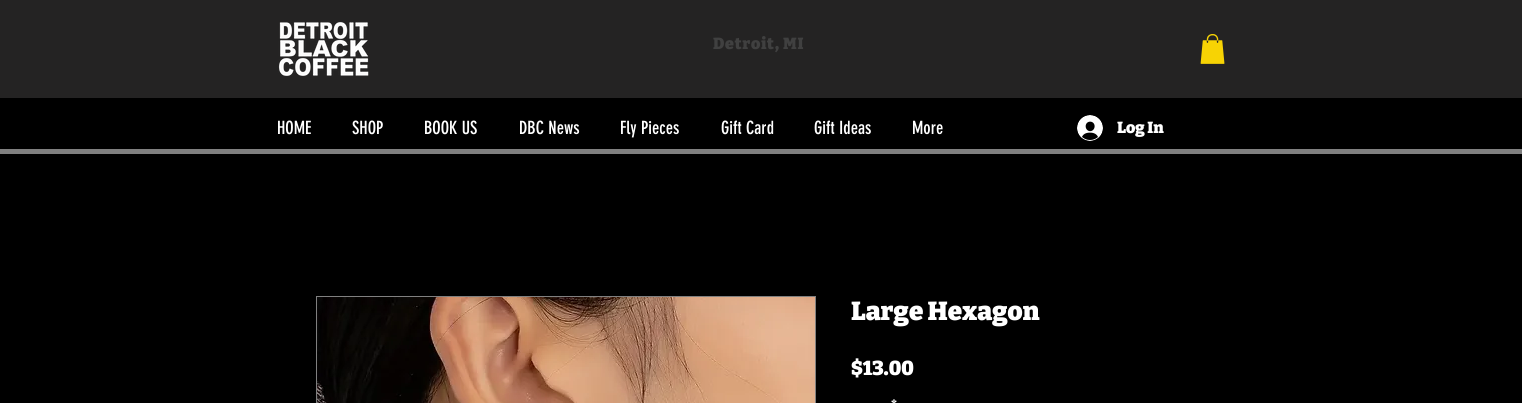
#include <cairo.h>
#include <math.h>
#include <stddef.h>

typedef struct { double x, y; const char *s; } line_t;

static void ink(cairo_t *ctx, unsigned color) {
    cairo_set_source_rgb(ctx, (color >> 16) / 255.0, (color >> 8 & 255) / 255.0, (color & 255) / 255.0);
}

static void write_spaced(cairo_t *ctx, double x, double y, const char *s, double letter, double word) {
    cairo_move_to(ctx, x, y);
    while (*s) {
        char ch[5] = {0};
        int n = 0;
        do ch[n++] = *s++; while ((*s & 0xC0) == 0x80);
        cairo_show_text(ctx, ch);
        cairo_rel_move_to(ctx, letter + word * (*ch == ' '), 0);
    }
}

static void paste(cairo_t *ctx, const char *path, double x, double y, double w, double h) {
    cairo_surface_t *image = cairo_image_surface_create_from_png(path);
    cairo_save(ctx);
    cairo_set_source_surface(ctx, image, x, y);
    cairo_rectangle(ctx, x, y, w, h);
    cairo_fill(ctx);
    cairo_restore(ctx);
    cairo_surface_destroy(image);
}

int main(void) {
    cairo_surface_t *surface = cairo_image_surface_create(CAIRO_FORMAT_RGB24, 1522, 403);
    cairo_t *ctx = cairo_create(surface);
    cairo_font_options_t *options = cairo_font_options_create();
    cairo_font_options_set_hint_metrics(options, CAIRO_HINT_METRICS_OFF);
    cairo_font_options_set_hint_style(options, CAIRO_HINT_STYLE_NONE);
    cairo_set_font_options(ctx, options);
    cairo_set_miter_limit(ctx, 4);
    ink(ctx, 0x000000);
    cairo_paint(ctx);
    ink(ctx, 0x242323);
    cairo_rectangle(ctx, 0, 0, 1522, 98);
    cairo_fill(ctx);
    paste(ctx, "media/1.png", 278, 22, 91, 54);
    cairo_select_font_face(ctx, "Bitter Black", CAIRO_FONT_SLANT_NORMAL, CAIRO_FONT_WEIGHT_NORMAL);
    cairo_set_font_size(ctx, 16);
    ink(ctx, 0x404040);
    write_spaced(ctx, 713, 49, "Detroit, MI", 0.75, 0);
    paste(ctx, "media/2.png", 1200, 34, 25, 30);
    cairo_select_font_face(ctx, "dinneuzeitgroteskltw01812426", CAIRO_FONT_SLANT_NORMAL, CAIRO_FONT_WEIGHT_NORMAL);
    cairo_set_font_size(ctx, 18);
    ink(ctx, 0xFFFFFF);
    {
        static const line_t items[] = {
            {277, 134, "HOME"},
            {352, 134, "SHOP"},
            {424, 134, "BOOK US"},
            {519, 134, "DBC News"},
            {620, 134, "Fly Pieces"},
            {721, 134, "Gift Card"},
            {814, 134, "Gift Ideas"},
            {912, 134, "More"},
        };
        for (size_t i = 0; i < sizeof items / sizeof *items; i++) {
            cairo_move_to(ctx, items[i].x, items[i].y);
            cairo_show_text(ctx, items[i].s);
        }
    }
    paste(ctx, "media/3.png", 1077, 115, 26, 26);
    cairo_select_font_face(ctx, "Bitter Black", CAIRO_FONT_SLANT_NORMAL, CAIRO_FONT_WEIGHT_NORMAL);
    cairo_set_font_size(ctx, 16);
    cairo_move_to(ctx, 1117, 133);
    cairo_show_text(ctx, "Log In");
    ink(ctx, 0x808080);
    cairo_rectangle(ctx, 0, 149, 1522, 5);
    cairo_fill(ctx);
    cairo_rectangle(ctx, 316.5, 296.5, 499, 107);
    cairo_set_line_width(ctx, 1);
    cairo_stroke(ctx);
    paste(ctx, "media/4.png", 317, 297, 498, 106);
    cairo_set_font_size(ctx, 26);
    ink(ctx, 0xFFFFFF);
    cairo_move_to(ctx, 851, 320);
    cairo_show_text(ctx, "Large Hexagon");
    cairo_set_font_size(ctx, 20);
    cairo_move_to(ctx, 851, 375);
    cairo_show_text(ctx, "$13.00");
    cairo_set_font_size(ctx, 14);
    cairo_move_to(ctx, 891, 410);
    cairo_show_text(ctx, "*");
    cairo_surface_write_to_png(surface, "image.png");
    cairo_font_options_destroy(options);
    cairo_destroy(ctx);
    cairo_surface_destroy(surface);
    return 0;
}
